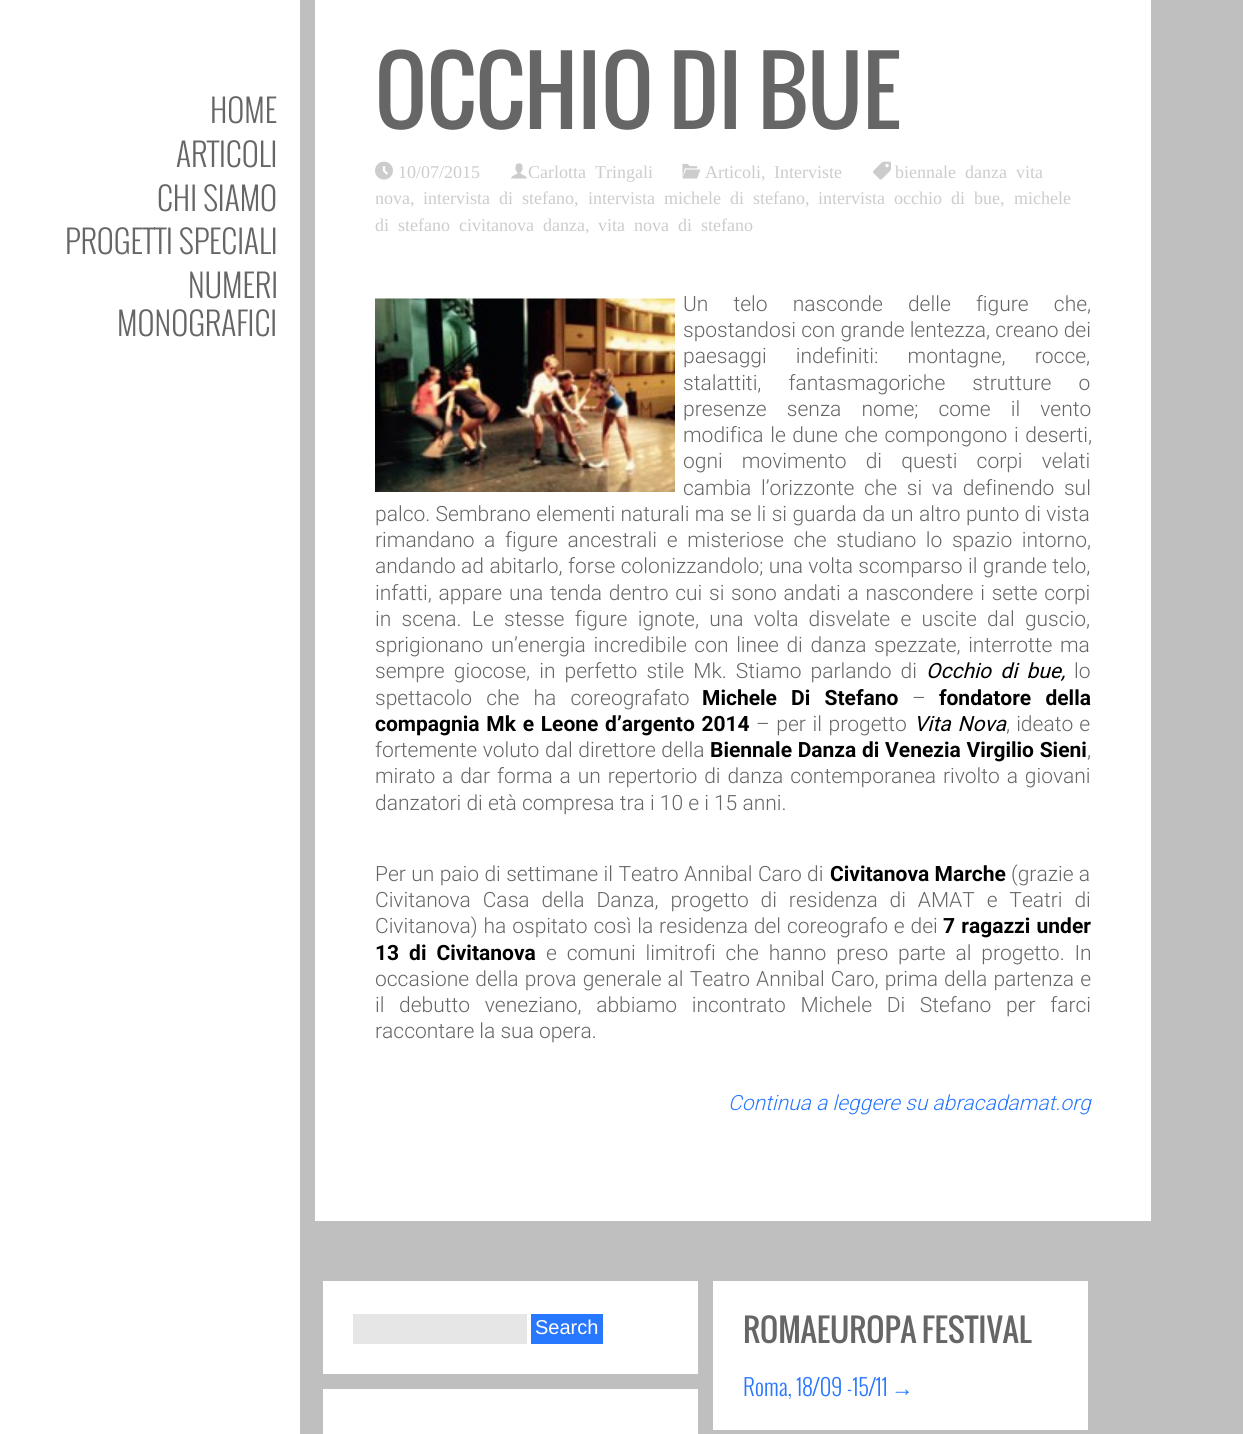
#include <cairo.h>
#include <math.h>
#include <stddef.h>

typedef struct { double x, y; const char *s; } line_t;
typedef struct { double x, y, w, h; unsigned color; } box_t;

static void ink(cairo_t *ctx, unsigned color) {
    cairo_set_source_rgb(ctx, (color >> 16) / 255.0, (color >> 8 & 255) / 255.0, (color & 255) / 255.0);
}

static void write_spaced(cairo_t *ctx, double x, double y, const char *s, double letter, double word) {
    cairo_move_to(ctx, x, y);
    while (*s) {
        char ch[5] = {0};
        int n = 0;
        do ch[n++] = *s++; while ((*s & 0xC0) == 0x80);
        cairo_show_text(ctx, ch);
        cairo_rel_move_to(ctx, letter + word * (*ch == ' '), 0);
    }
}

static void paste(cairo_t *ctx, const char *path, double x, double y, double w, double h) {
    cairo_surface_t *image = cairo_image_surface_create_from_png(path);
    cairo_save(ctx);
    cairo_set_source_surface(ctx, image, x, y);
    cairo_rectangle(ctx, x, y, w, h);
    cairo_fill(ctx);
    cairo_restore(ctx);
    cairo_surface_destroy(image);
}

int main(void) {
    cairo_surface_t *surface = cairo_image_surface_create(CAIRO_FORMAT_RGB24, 1243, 1434);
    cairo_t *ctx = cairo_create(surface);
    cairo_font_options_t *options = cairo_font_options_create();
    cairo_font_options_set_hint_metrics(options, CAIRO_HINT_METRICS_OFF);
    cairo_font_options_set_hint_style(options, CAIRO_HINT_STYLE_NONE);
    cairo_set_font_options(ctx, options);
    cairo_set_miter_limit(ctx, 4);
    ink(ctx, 0xBFBFBF);
    cairo_paint(ctx);
    ink(ctx, 0xFFFFFF);
    cairo_rectangle(ctx, 0, 0, 300, 1434);
    cairo_fill(ctx);
    cairo_rectangle(ctx, 315, 0, 836, 1221);
    cairo_fill(ctx);
    cairo_select_font_face(ctx, "Oswald", CAIRO_FONT_SLANT_NORMAL, CAIRO_FONT_WEIGHT_NORMAL);
    cairo_set_font_size(ctx, 90);
    ink(ctx, 0x666666);
    cairo_move_to(ctx, 375, 129);
    cairo_show_text(ctx, "OCCHIO DI BUE");
    paste(ctx, "media/1.png", 375, 161, 18, 19);
    cairo_select_font_face(ctx, "Liberation Serif", CAIRO_FONT_SLANT_NORMAL, CAIRO_FONT_WEIGHT_NORMAL);
    cairo_set_font_size(ctx, 18);
    ink(ctx, 0xCCCCCC);
    cairo_move_to(ctx, 398, 178);
    cairo_show_text(ctx, "10/07/2015");
    paste(ctx, "media/2.png", 511, 163, 16, 16);
    write_spaced(ctx, 528, 178, "Carlotta Tringali", 0, 4.5);
    paste(ctx, "media/3.png", 682, 163, 19, 16);
    cairo_move_to(ctx, 705, 178);
    cairo_show_text(ctx, "Articoli,");
    cairo_move_to(ctx, 774, 178);
    cairo_show_text(ctx, "Interviste");
    paste(ctx, "media/4.png", 873, 161, 18, 19);
    write_spaced(ctx, 895, 178, "biennale danza vita", 0, 4.5);
    cairo_move_to(ctx, 375, 204);
    cairo_show_text(ctx, "nova,");
    write_spaced(ctx, 423, 204, "intervista di stefano", 0, 4.5);
    cairo_move_to(ctx, 574, 204);
    cairo_show_text(ctx, ",");
    write_spaced(ctx, 588, 204, "intervista michele di stefano", 0, 4.5);
    cairo_move_to(ctx, 805, 204);
    cairo_show_text(ctx, ",");
    write_spaced(ctx, 818, 204, "intervista occhio di bue", 0, 4.5);
    cairo_move_to(ctx, 1000, 204);
    cairo_show_text(ctx, ",");
    cairo_move_to(ctx, 1014, 204);
    cairo_show_text(ctx, "michele");
    write_spaced(ctx, 375, 231, "di stefano civitanova danza", 0, 4.5);
    cairo_move_to(ctx, 585, 231);
    cairo_show_text(ctx, ",");
    write_spaced(ctx, 598, 231, "vita nova di stefano", 0, 4.5);
    paste(ctx, "media/5.png", 375, 298, 300, 194);
    cairo_select_font_face(ctx, "Roboto Light", CAIRO_FONT_SLANT_NORMAL, CAIRO_FONT_WEIGHT_NORMAL);
    cairo_set_font_size(ctx, 21);
    ink(ctx, 0x666666);
    write_spaced(ctx, 683, 311, "Un telo nasconde delle figure che,", 0, 20);
    cairo_move_to(ctx, 683, 337);
    cairo_show_text(ctx, "spostandosi con grande lentezza, creano dei");
    write_spaced(ctx, 683, 363, "paesaggi indefiniti: montagne, rocce,", 0, 24);
    write_spaced(ctx, 683, 390, "stalattiti, fantasmagoriche strutture o", 0, 22);
    write_spaced(ctx, 683, 416, "presenze senza nome; come il vento", 0, 15);
    write_spaced(ctx, 683, 442, "modifica le dune che compongono i deserti,", 0, 1.5);
    write_spaced(ctx, 683, 468, "ogni movimento di questi corpi velati", 0, 14);
    write_spaced(ctx, 683, 495, "cambia l’orizzonte che si va definendo sul", 0, 4.5);
    write_spaced(ctx, 375, 521, "palco. Sembrano elementi naturali ma se li si guarda da un altro punto di vista", 0, 0.25);
    write_spaced(ctx, 375, 547, "rimandano a figure ancestrali e misteriose che studiano lo spazio intorno,", 0, 4.5);
    write_spaced(ctx, 375, 573, "andando ad abitarlo, forse colonizzandolo; una volta scomparso il grande telo,", 0, 0.25);
    write_spaced(ctx, 375, 600, "infatti, appare una tenda dentro cui si sono andati a nascondere i sette corpi", 0, 1.6);
    write_spaced(ctx, 375, 626, "in scena. Le stesse figure ignote, una volta disvelate e uscite dal guscio,", 0, 5.1);
    write_spaced(ctx, 375, 652, "sprigionano un’energia incredibile con linee di danza spezzate, interrotte ma", 0, 2.5);
    write_spaced(ctx, 375, 678, "sempre giocose, in perfetto stile Mk. Stiamo parlando di", 0, 4);
    cairo_select_font_face(ctx, "Roboto", CAIRO_FONT_SLANT_ITALIC, CAIRO_FONT_WEIGHT_NORMAL);
    ink(ctx, 0x000000);
    write_spaced(ctx, 926, 678, "Occhio di bue,", 0, 4);
    cairo_select_font_face(ctx, "Roboto Light", CAIRO_FONT_SLANT_NORMAL, CAIRO_FONT_WEIGHT_NORMAL);
    ink(ctx, 0x666666);
    cairo_move_to(ctx, 1074, 678);
    cairo_show_text(ctx, "lo");
    write_spaced(ctx, 375, 705, "spettacolo che ha coreografato", 0, 9);
    cairo_select_font_face(ctx, "Roboto", CAIRO_FONT_SLANT_NORMAL, CAIRO_FONT_WEIGHT_BOLD);
    ink(ctx, 0x000000);
    write_spaced(ctx, 702, 705, "Michele Di Stefano", 0, 9);
    cairo_select_font_face(ctx, "Roboto Light", CAIRO_FONT_SLANT_NORMAL, CAIRO_FONT_WEIGHT_NORMAL);
    ink(ctx, 0x666666);
    cairo_move_to(ctx, 912, 705);
    cairo_show_text(ctx, "–");
    cairo_select_font_face(ctx, "Roboto", CAIRO_FONT_SLANT_NORMAL, CAIRO_FONT_WEIGHT_BOLD);
    ink(ctx, 0x000000);
    write_spaced(ctx, 939, 705, "fondatore della", 0, 9);
    write_spaced(ctx, 375, 731, "compagnia Mk e Leone d’argento 2014", 0, 1.5);
    cairo_select_font_face(ctx, "Roboto Light", CAIRO_FONT_SLANT_NORMAL, CAIRO_FONT_WEIGHT_NORMAL);
    ink(ctx, 0x666666);
    write_spaced(ctx, 756, 731, "– per il progetto", 0, 1.5);
    cairo_select_font_face(ctx, "Roboto", CAIRO_FONT_SLANT_ITALIC, CAIRO_FONT_WEIGHT_NORMAL);
    ink(ctx, 0x000000);
    write_spaced(ctx, 914, 731, "Vita Nova", 0, 1.5);
    cairo_select_font_face(ctx, "Roboto Light", CAIRO_FONT_SLANT_NORMAL, CAIRO_FONT_WEIGHT_NORMAL);
    ink(ctx, 0x666666);
    write_spaced(ctx, 1006, 731, ", ideato e", 0, 1);
    write_spaced(ctx, 375, 757, "fortemente voluto dal direttore della", 0, 0.5);
    cairo_select_font_face(ctx, "Roboto", CAIRO_FONT_SLANT_NORMAL, CAIRO_FONT_WEIGHT_BOLD);
    ink(ctx, 0x000000);
    write_spaced(ctx, 710, 757, "Biennale Danza di Venezia Virgilio Sieni", 0, 0.5);
    cairo_select_font_face(ctx, "Roboto Light", CAIRO_FONT_SLANT_NORMAL, CAIRO_FONT_WEIGHT_NORMAL);
    ink(ctx, 0x666666);
    cairo_move_to(ctx, 1087, 757);
    cairo_show_text(ctx, ",");
    write_spaced(ctx, 375, 783, "mirato a dar forma a un repertorio di danza contemporanea rivolto a giovani", 0, 1.75);
    cairo_move_to(ctx, 375, 810);
    cairo_show_text(ctx, "danzatori di età compresa tra i 10 e i 15 anni.");
    write_spaced(ctx, 375, 881, "Per un paio di settimane il Teatro Annibal Caro di", 0, 0.25);
    cairo_select_font_face(ctx, "Roboto", CAIRO_FONT_SLANT_NORMAL, CAIRO_FONT_WEIGHT_BOLD);
    ink(ctx, 0x000000);
    cairo_move_to(ctx, 830, 881);
    cairo_show_text(ctx, "Civitanova Marche");
    cairo_select_font_face(ctx, "Roboto Light", CAIRO_FONT_SLANT_NORMAL, CAIRO_FONT_WEIGHT_NORMAL);
    ink(ctx, 0x666666);
    write_spaced(ctx, 1011, 881, "(grazie a", 0, 0.25);
    write_spaced(ctx, 375, 907, "Civitanova Casa della Danza, progetto di residenza di AMAT e Teatri di", 0, 6.75);
    write_spaced(ctx, 375, 933, "Civitanova) ha ospitato così la residenza del coreografo e dei", 0, 0.75);
    cairo_select_font_face(ctx, "Roboto", CAIRO_FONT_SLANT_NORMAL, CAIRO_FONT_WEIGHT_BOLD);
    ink(ctx, 0x000000);
    write_spaced(ctx, 943, 933, "7 ragazzi under", 0, 1);
    write_spaced(ctx, 375, 960, "13 di Civitanova", 0, 4.75);
    cairo_select_font_face(ctx, "Roboto Light", CAIRO_FONT_SLANT_NORMAL, CAIRO_FONT_WEIGHT_NORMAL);
    ink(ctx, 0x666666);
    write_spaced(ctx, 546, 960, "e comuni limitrofi che hanno preso parte al progetto. In", 0, 4.75);
    write_spaced(ctx, 375, 986, "occasione della prova generale al Teatro Annibal Caro, prima della partenza e", 0, 1);
    write_spaced(ctx, 375, 1012, "il debutto veneziano, abbiamo incontrato Michele Di Stefano per farci", 0, 9.5);
    cairo_move_to(ctx, 375, 1038);
    cairo_show_text(ctx, "raccontare la sua opera.");
    cairo_select_font_face(ctx, "Roboto Light", CAIRO_FONT_SLANT_ITALIC, CAIRO_FONT_WEIGHT_NORMAL);
    ink(ctx, 0x2877FF);
    cairo_move_to(ctx, 728, 1110);
    cairo_show_text(ctx, "Continua a leggere su abracadamat.org");
    cairo_select_font_face(ctx, "Oswald Light", CAIRO_FONT_SLANT_NORMAL, CAIRO_FONT_WEIGHT_NORMAL);
    cairo_set_font_size(ctx, 31.5);
    ink(ctx, 0x666666);
    {
        static const line_t items[] = {
            {210, 123, "HOME"},
            {176, 167, "ARTICOLI"},
            {157, 211, "CHI SIAMO"},
            {65, 254, "PROGETTI SPECIALI"},
            {188, 298, "NUMERI"},
            {117, 336, "MONOGRAFICI"},
        };
        for (size_t i = 0; i < sizeof items / sizeof *items; i++) {
            cairo_move_to(ctx, items[i].x, items[i].y);
            cairo_show_text(ctx, items[i].s);
        }
    }
    {
        static const box_t items[] = {
            {323, 1281, 375, 93, 0xFFFFFF},
            {353, 1314, 174, 30, 0xE6E6E6},
            {531, 1314, 72, 30, 0x2877FF},
        };
        for (size_t i = 0; i < sizeof items / sizeof *items; i++) {
            ink(ctx, items[i].color);
            cairo_rectangle(ctx, items[i].x, items[i].y, items[i].w, items[i].h);
            cairo_fill(ctx);
        }
    }
    cairo_select_font_face(ctx, "Liberation Sans", CAIRO_FONT_SLANT_NORMAL, CAIRO_FONT_WEIGHT_NORMAL);
    cairo_set_font_size(ctx, 20);
    ink(ctx, 0xFFFFFF);
    cairo_move_to(ctx, 535, 1334);
    cairo_show_text(ctx, "Search");
    cairo_rectangle(ctx, 713, 1281, 375, 149);
    cairo_fill(ctx);
    cairo_select_font_face(ctx, "Oswald", CAIRO_FONT_SLANT_NORMAL, CAIRO_FONT_WEIGHT_NORMAL);
    cairo_set_font_size(ctx, 31.5);
    ink(ctx, 0x666666);
    cairo_move_to(ctx, 743, 1343);
    cairo_show_text(ctx, "ROMAEUROPA FESTIVAL");
    cairo_select_font_face(ctx, "Oswald Light", CAIRO_FONT_SLANT_NORMAL, CAIRO_FONT_WEIGHT_NORMAL);
    cairo_set_font_size(ctx, 22.5);
    ink(ctx, 0x2877FF);
    cairo_move_to(ctx, 743, 1396);
    cairo_show_text(ctx, "Roma, 18/09 -15/11");
    cairo_select_font_face(ctx, "Liberation Serif", CAIRO_FONT_SLANT_NORMAL, CAIRO_FONT_WEIGHT_NORMAL);
    cairo_move_to(ctx, 891, 1396);
    cairo_show_text(ctx, "→");
    ink(ctx, 0xFFFFFF);
    cairo_rectangle(ctx, 323, 1389, 375, 45);
    cairo_fill(ctx);
    cairo_surface_write_to_png(surface, "image.png");
    cairo_font_options_destroy(options);
    cairo_destroy(ctx);
    cairo_surface_destroy(surface);
    return 0;
}
